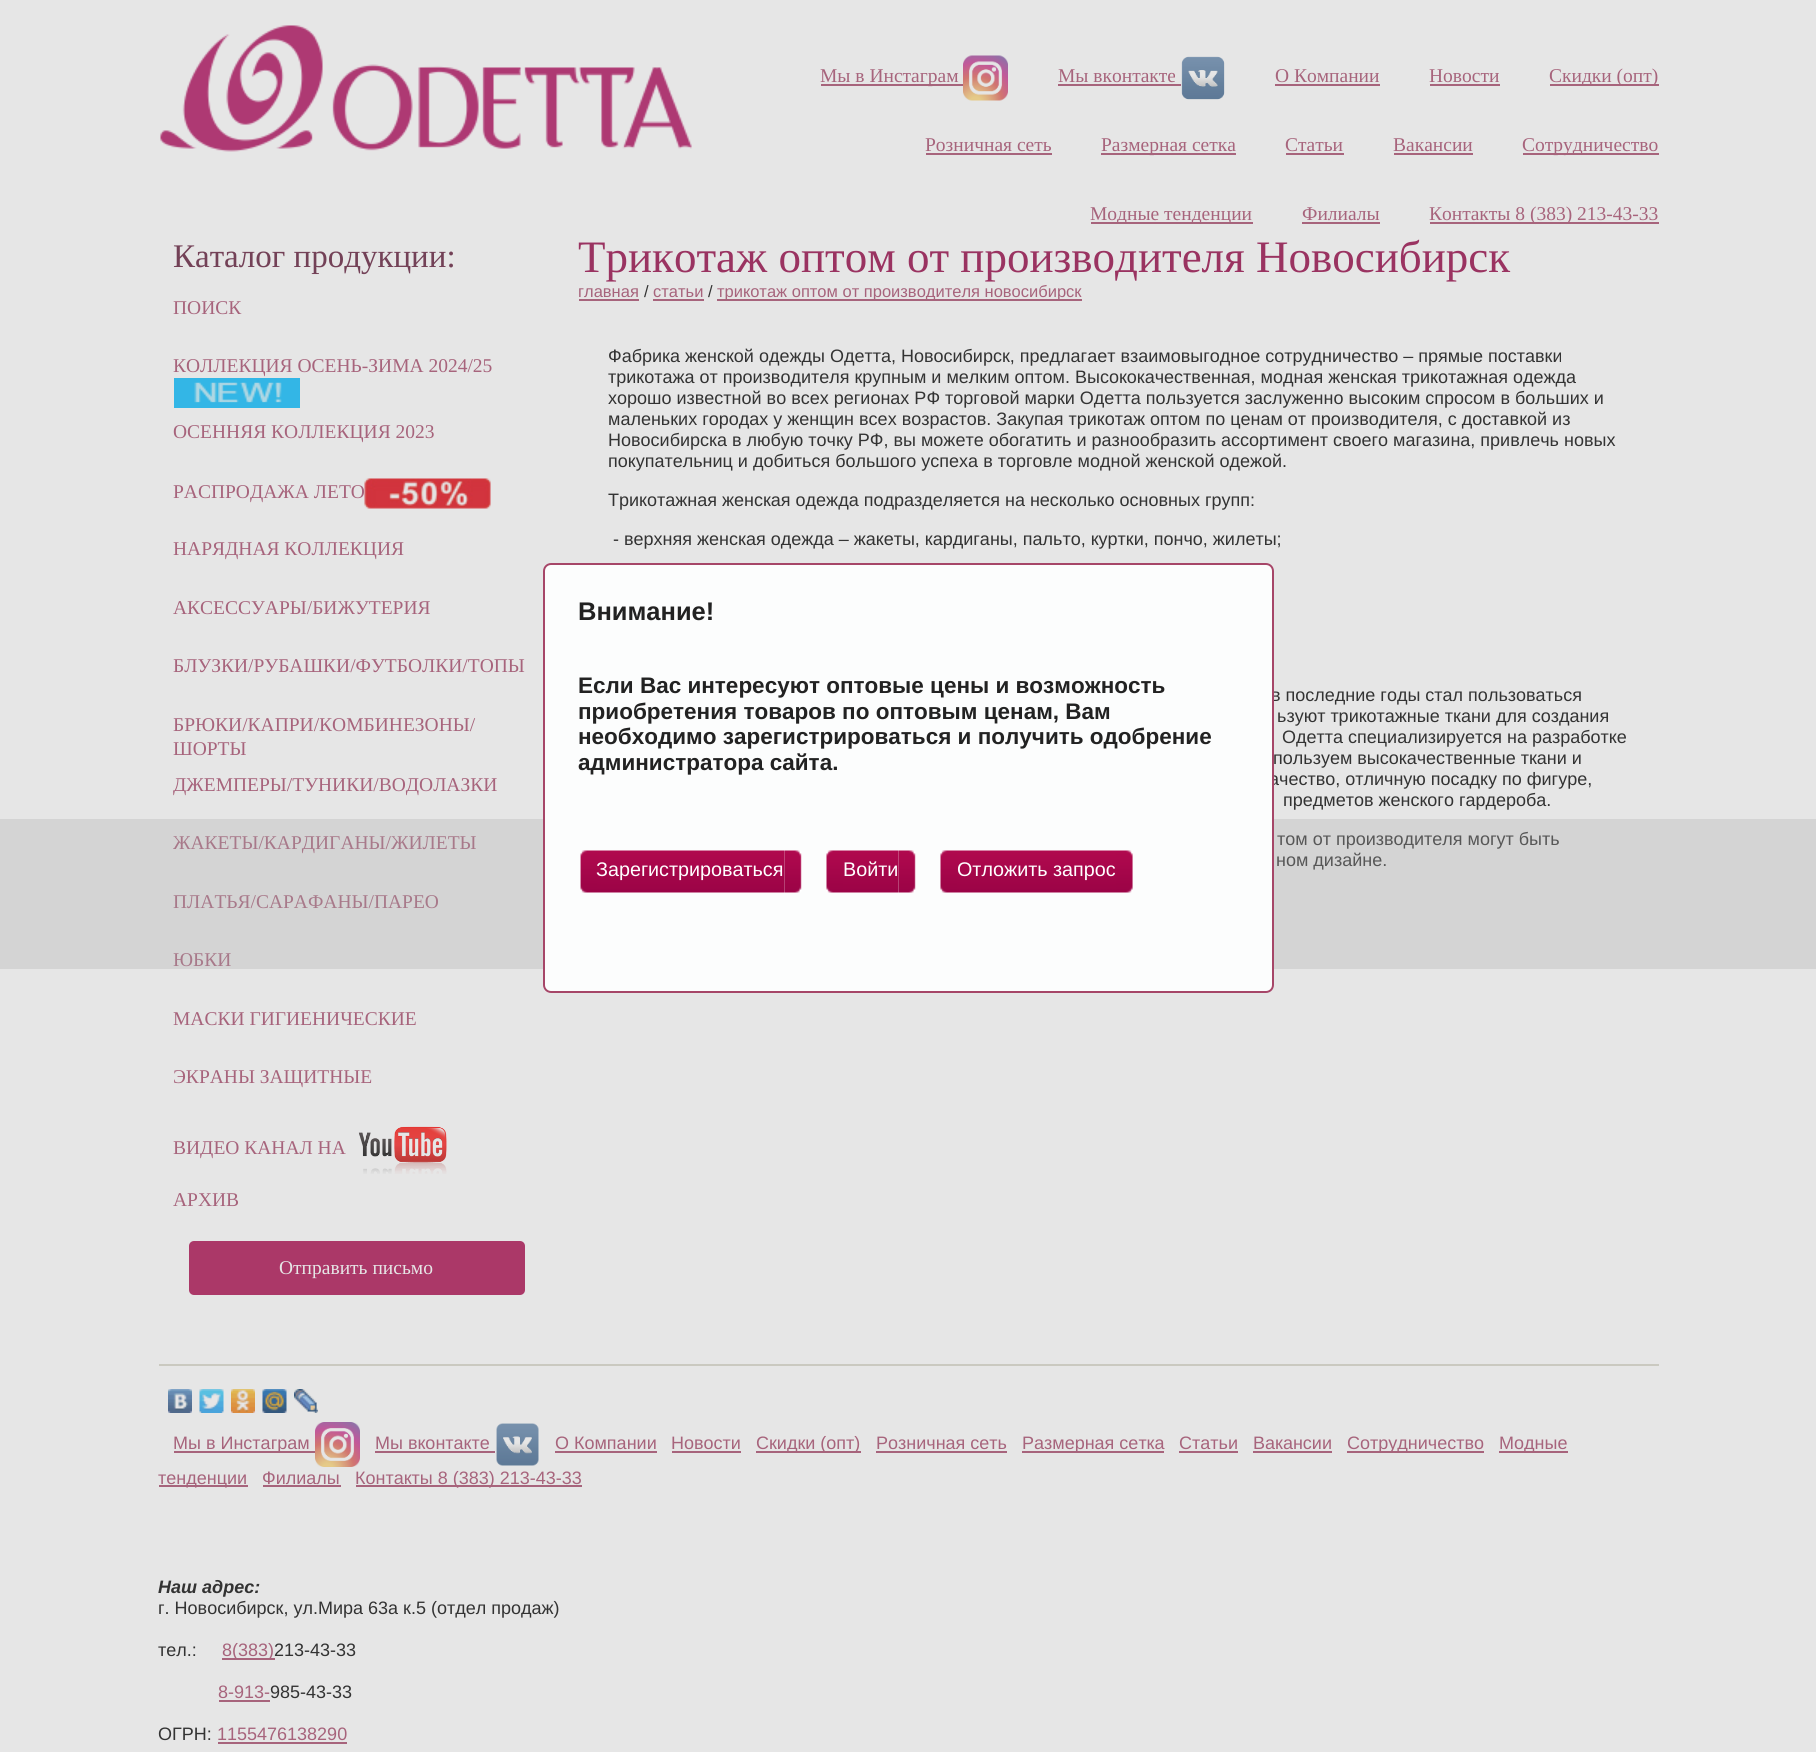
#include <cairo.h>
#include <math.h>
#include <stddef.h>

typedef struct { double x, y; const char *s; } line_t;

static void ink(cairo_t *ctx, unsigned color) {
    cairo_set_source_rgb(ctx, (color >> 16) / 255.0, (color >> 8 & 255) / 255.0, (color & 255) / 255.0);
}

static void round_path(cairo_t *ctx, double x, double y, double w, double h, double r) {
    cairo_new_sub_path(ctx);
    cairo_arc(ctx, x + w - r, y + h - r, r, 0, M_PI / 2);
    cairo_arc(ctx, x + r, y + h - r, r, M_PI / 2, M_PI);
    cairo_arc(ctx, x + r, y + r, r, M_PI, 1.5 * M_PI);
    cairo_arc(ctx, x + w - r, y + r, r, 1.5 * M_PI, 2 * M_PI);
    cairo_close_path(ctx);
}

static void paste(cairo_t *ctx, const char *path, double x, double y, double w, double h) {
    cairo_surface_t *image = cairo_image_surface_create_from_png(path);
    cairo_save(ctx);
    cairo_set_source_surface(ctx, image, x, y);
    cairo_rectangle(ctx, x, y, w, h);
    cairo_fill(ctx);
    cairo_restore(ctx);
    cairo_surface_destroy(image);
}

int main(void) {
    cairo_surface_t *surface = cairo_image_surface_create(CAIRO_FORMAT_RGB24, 1816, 1752);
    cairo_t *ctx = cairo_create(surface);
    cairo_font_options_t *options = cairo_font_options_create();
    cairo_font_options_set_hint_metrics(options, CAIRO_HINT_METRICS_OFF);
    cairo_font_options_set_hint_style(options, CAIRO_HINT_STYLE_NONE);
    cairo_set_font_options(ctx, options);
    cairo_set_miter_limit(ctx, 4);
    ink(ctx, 0xE6E6E6);
    cairo_paint(ctx);
    ink(ctx, 0xD4D4D4);
    cairo_rectangle(ctx, 0, 819, 1816, 150);
    cairo_fill(ctx);
    paste(ctx, "media/1.png", 160, 25, 532, 127);
    ink(ctx, 0xA7647C);
    cairo_rectangle(ctx, 821, 84, 142, 2);
    cairo_fill(ctx);
    cairo_select_font_face(ctx, "Liberation Serif", CAIRO_FONT_SLANT_NORMAL, CAIRO_FONT_WEIGHT_NORMAL);
    cairo_set_font_size(ctx, 19.5);
    cairo_move_to(ctx, 820, 82);
    cairo_show_text(ctx, "Мы в Инстаграм");
    paste(ctx, "media/2.png", 963, 55, 45, 46);
    cairo_move_to(ctx, 1058, 82);
    cairo_show_text(ctx, "Мы вконтакте");
    cairo_rectangle(ctx, 1058, 84, 123, 2);
    cairo_fill(ctx);
    paste(ctx, "media/3.png", 1181, 56, 44, 44);
    cairo_move_to(ctx, 1275, 82);
    cairo_show_text(ctx, "О Компании");
    cairo_rectangle(ctx, 1275, 84, 105, 2);
    cairo_fill(ctx);
    cairo_move_to(ctx, 1429, 82);
    cairo_show_text(ctx, "Новости");
    cairo_rectangle(ctx, 1430, 84, 70, 2);
    cairo_fill(ctx);
    cairo_rectangle(ctx, 1550, 84, 109, 2);
    cairo_fill(ctx);
    cairo_move_to(ctx, 1549, 82);
    cairo_show_text(ctx, "Скидки (опт)");
    cairo_move_to(ctx, 925, 151);
    cairo_show_text(ctx, "Розничная сеть");
    cairo_rectangle(ctx, 926, 153, 126, 2);
    cairo_fill(ctx);
    cairo_rectangle(ctx, 1101, 153, 135, 2);
    cairo_fill(ctx);
    cairo_move_to(ctx, 1101, 151);
    cairo_show_text(ctx, "Размерная сетка");
    cairo_move_to(ctx, 1285, 151);
    cairo_show_text(ctx, "Статьи");
    cairo_rectangle(ctx, 1286, 153, 58, 2);
    cairo_fill(ctx);
    cairo_move_to(ctx, 1393, 151);
    cairo_show_text(ctx, "Вакансии");
    cairo_rectangle(ctx, 1394, 153, 79, 2);
    cairo_fill(ctx);
    cairo_rectangle(ctx, 1523, 153, 136, 2);
    cairo_fill(ctx);
    cairo_move_to(ctx, 1522, 151);
    cairo_show_text(ctx, "Сотрудничество");
    cairo_rectangle(ctx, 1091, 222, 162, 2);
    cairo_fill(ctx);
    cairo_move_to(ctx, 1090, 220);
    cairo_show_text(ctx, "Модные тенденции");
    cairo_move_to(ctx, 1302, 220);
    cairo_show_text(ctx, "Филиалы");
    cairo_rectangle(ctx, 1302, 222, 78, 2);
    cairo_fill(ctx);
    cairo_rectangle(ctx, 1430, 222, 229, 2);
    cairo_fill(ctx);
    cairo_move_to(ctx, 1429, 220);
    cairo_show_text(ctx, "Контакты 8 (383) 213-43-33");
    cairo_set_font_size(ctx, 33);
    ink(ctx, 0x734157);
    cairo_move_to(ctx, 173, 267);
    cairo_show_text(ctx, "Каталог продукции:");
    cairo_set_font_size(ctx, 19.5);
    ink(ctx, 0xA7647C);
    cairo_move_to(ctx, 173, 314);
    cairo_show_text(ctx, "ПОИСК");
    cairo_move_to(ctx, 173, 372);
    cairo_show_text(ctx, "КОЛЛЕКЦИЯ ОСЕНЬ-ЗИМА 2024/25");
    paste(ctx, "media/4.png", 174, 378, 126, 30);
    cairo_move_to(ctx, 173, 438);
    cairo_show_text(ctx, "ОСЕННЯЯ КОЛЛЕКЦИЯ 2023");
    cairo_move_to(ctx, 173, 498);
    cairo_show_text(ctx, "РАСПРОДАЖА ЛЕТО");
    paste(ctx, "media/5.png", 364, 478, 127, 31);
    {
        static const line_t items[] = {
            {173, 555, "НАРЯДНАЯ КОЛЛЕКЦИЯ"},
            {173, 614, "АКСЕССУАРЫ/БИЖУТЕРИЯ"},
            {173, 672, "БЛУЗКИ/РУБАШКИ/ФУТБОЛКИ/ТОПЫ"},
            {173, 731, "БРЮКИ/КАПРИ/КОМБИНЕЗОНЫ/"},
            {173, 755, "ШОРТЫ"},
            {173, 791, "ДЖЕМПЕРЫ/ТУНИКИ/ВОДОЛАЗКИ"},
        };
        for (size_t i = 0; i < sizeof items / sizeof *items; i++) {
            cairo_move_to(ctx, items[i].x, items[i].y);
            cairo_show_text(ctx, items[i].s);
        }
    }
    ink(ctx, 0xA8798A);
    {
        static const line_t items[] = {
            {173, 849, "ЖАКЕТЫ/КАРДИГАНЫ/ЖИЛЕТЫ"},
            {173, 908, "ПЛАТЬЯ/САРАФАНЫ/ПАРЕО"},
            {173, 966, "ЮБКИ"},
        };
        for (size_t i = 0; i < sizeof items / sizeof *items; i++) {
            cairo_move_to(ctx, items[i].x, items[i].y);
            cairo_show_text(ctx, items[i].s);
        }
    }
    ink(ctx, 0xA7647C);
    {
        static const line_t items[] = {
            {173, 1025, "МАСКИ ГИГИЕНИЧЕСКИЕ"},
            {173, 1083, "ЭКРАНЫ ЗАЩИТНЫЕ"},
            {173, 1154, "ВИДЕО КАНАЛ НА"},
        };
        for (size_t i = 0; i < sizeof items / sizeof *items; i++) {
            cairo_move_to(ctx, items[i].x, items[i].y);
            cairo_show_text(ctx, items[i].s);
        }
    }
    paste(ctx, "media/6.png", 358, 1126, 89, 48);
    cairo_move_to(ctx, 173, 1206);
    cairo_show_text(ctx, "АРХИВ");
    ink(ctx, 0xAB3868);
    round_path(ctx, 189, 1241, 336, 54, 5);
    cairo_fill(ctx);
    ink(ctx, 0xE6E6E6);
    cairo_move_to(ctx, 279, 1274);
    cairo_show_text(ctx, "Отправить письмо");
    cairo_set_font_size(ctx, 45);
    ink(ctx, 0x9A3361);
    cairo_move_to(ctx, 578, 272);
    cairo_show_text(ctx, "Трикотаж оптом от производителя Новосибирск");
    cairo_select_font_face(ctx, "Liberation Sans", CAIRO_FONT_SLANT_NORMAL, CAIRO_FONT_WEIGHT_NORMAL);
    cairo_set_font_size(ctx, 16.5);
    ink(ctx, 0xA7647C);
    cairo_move_to(ctx, 578, 297);
    cairo_show_text(ctx, "главная");
    cairo_rectangle(ctx, 579, 299, 60, 2);
    cairo_fill(ctx);
    ink(ctx, 0x333333);
    cairo_move_to(ctx, 644, 297);
    cairo_show_text(ctx, "/");
    ink(ctx, 0xA7647C);
    cairo_move_to(ctx, 653, 297);
    cairo_show_text(ctx, "статьи");
    cairo_rectangle(ctx, 653, 299, 51, 2);
    cairo_fill(ctx);
    ink(ctx, 0x333333);
    cairo_move_to(ctx, 708, 297);
    cairo_show_text(ctx, "/");
    ink(ctx, 0xA7647C);
    cairo_rectangle(ctx, 717, 299, 365, 2);
    cairo_fill(ctx);
    cairo_move_to(ctx, 717, 297);
    cairo_show_text(ctx, "трикотаж оптом от производителя новосибирск");
    cairo_set_font_size(ctx, 18);
    ink(ctx, 0x333333);
    {
        static const line_t items[] = {
            {608, 362, "Фабрика женской одежды Одетта, Новосибирск, предлагает взаимовыгодное сотрудничество – прямые поставки"},
            {608, 383, "трикотажа от производителя крупным и мелким оптом. Высококачественная, модная женская трикотажная одежда"},
            {608, 404, "хорошо известной во всех регионах РФ торговой марки Одетта пользуется заслуженно высоким спросом в больших и"},
            {608, 425, "маленьких городах у женщин всех возрастов. Закупая трикотаж оптом по ценам от производителя, с доставкой из"},
            {608, 446, "Новосибирска в любую точку РФ, вы можете обогатить и разнообразить ассортимент своего магазина, привлечь новых"},
            {608, 467, "покупательниц и добиться большого успеха в торговле модной женской одежой."},
            {608, 506, "Трикотажная женская одежда подразделяется на несколько основных групп:"},
            {613, 545, "- верхняя женская одежда – жакеты, кардиганы, пальто, куртки, пончо, жилеты;"},
            {1271, 701, "в последние годы стал пользоваться"},
            {1277, 722, "ьзуют трикотажные ткани для создания"},
            {1282, 743, "Одетта специализируется на разработке"},
            {1273, 764, "пользуем высокачественные ткани и"},
            {1269, 785, "ачество, отличную посадку по фигуре,"},
            {1283, 806, "предметов женского гардероба."},
        };
        for (size_t i = 0; i < sizeof items / sizeof *items; i++) {
            cairo_move_to(ctx, items[i].x, items[i].y);
            cairo_show_text(ctx, items[i].s);
        }
    }
    ink(ctx, 0x575757);
    cairo_move_to(ctx, 1277, 845);
    cairo_show_text(ctx, "том от производителя могут быть");
    cairo_move_to(ctx, 1276, 866);
    cairo_show_text(ctx, "ном дизайне.");
    ink(ctx, 0xFCFDFD);
    round_path(ctx, 543, 563, 731, 430, 8);
    cairo_fill(ctx);
    paste(ctx, "media/7.png", 543, 987, 4, 5);
    round_path(ctx, 544, 564, 729, 428, 7);
    ink(ctx, 0xA64668);
    cairo_stroke(ctx);
    cairo_select_font_face(ctx, "Liberation Sans", CAIRO_FONT_SLANT_NORMAL, CAIRO_FONT_WEIGHT_BOLD);
    cairo_set_font_size(ctx, 25.5);
    ink(ctx, 0x222222);
    cairo_move_to(ctx, 578, 620);
    cairo_show_text(ctx, "Внимание!");
    cairo_set_font_size(ctx, 22.5);
    {
        static const line_t items[] = {
            {578, 693, "Если Вас интересуют оптовые цены и возможность"},
            {578, 719, "приобретения товаров по оптовым ценам, Вам"},
            {578, 744, "необходимо зарегистрироваться и получить одобрение"},
            {578, 770, "администратора сайта."},
        };
        for (size_t i = 0; i < sizeof items / sizeof *items; i++) {
            cairo_move_to(ctx, items[i].x, items[i].y);
            cairo_show_text(ctx, items[i].s);
        }
    }
    paste(ctx, "media/8.png", 580, 850, 17, 43);
    paste(ctx, "media/9.png", 597, 850, 188, 43);
    cairo_select_font_face(ctx, "Liberation Sans", CAIRO_FONT_SLANT_NORMAL, CAIRO_FONT_WEIGHT_NORMAL);
    cairo_set_font_size(ctx, 19.75);
    ink(ctx, 0xFFFFFF);
    cairo_move_to(ctx, 596, 876);
    cairo_show_text(ctx, "Зарегистрироваться");
    paste(ctx, "media/10.png", 784, 850, 18, 43);
    paste(ctx, "media/11.png", 826, 850, 17, 43);
    paste(ctx, "media/12.png", 843, 850, 56, 43);
    cairo_move_to(ctx, 843, 876);
    cairo_show_text(ctx, "Войти");
    paste(ctx, "media/10.png", 898, 850, 18, 43);
    paste(ctx, "media/11.png", 940, 850, 17, 43);
    paste(ctx, "media/13.png", 957, 850, 159, 43);
    cairo_move_to(ctx, 957, 876);
    cairo_show_text(ctx, "Отложить запрос");
    paste(ctx, "media/14.png", 1116, 850, 17, 43);
    ink(ctx, 0xCAC9C0);
    cairo_rectangle(ctx, 159, 1364, 1500, 2);
    cairo_fill(ctx);
    paste(ctx, "media/15.png", 168, 1389, 24, 24);
    paste(ctx, "media/16.png", 199, 1389, 25, 24);
    paste(ctx, "media/17.png", 231, 1389, 24, 24);
    paste(ctx, "media/18.png", 262, 1389, 25, 24);
    paste(ctx, "media/19.png", 294, 1389, 24, 24);
    ink(ctx, 0xA7647C);
    cairo_rectangle(ctx, 174, 1451, 141, 2);
    cairo_fill(ctx);
    cairo_set_font_size(ctx, 18);
    cairo_move_to(ctx, 173, 1449);
    cairo_show_text(ctx, "Мы в Инстаграм");
    paste(ctx, "media/20.png", 315, 1422, 45, 45);
    cairo_move_to(ctx, 375, 1449);
    cairo_show_text(ctx, "Мы вконтакте");
    cairo_rectangle(ctx, 375, 1451, 120, 2);
    cairo_fill(ctx);
    paste(ctx, "media/21.png", 496, 1423, 43, 43);
    cairo_move_to(ctx, 555, 1449);
    cairo_show_text(ctx, "О Компании");
    cairo_rectangle(ctx, 555, 1451, 102, 2);
    cairo_fill(ctx);
    cairo_move_to(ctx, 671, 1449);
    cairo_show_text(ctx, "Новости");
    cairo_rectangle(ctx, 672, 1451, 69, 2);
    cairo_fill(ctx);
    cairo_rectangle(ctx, 756, 1451, 105, 2);
    cairo_fill(ctx);
    cairo_move_to(ctx, 756, 1449);
    cairo_show_text(ctx, "Скидки (опт)");
    cairo_move_to(ctx, 876, 1449);
    cairo_show_text(ctx, "Розничная сеть");
    cairo_rectangle(ctx, 876, 1451, 131, 2);
    cairo_fill(ctx);
    cairo_rectangle(ctx, 1022, 1451, 142, 2);
    cairo_fill(ctx);
    cairo_move_to(ctx, 1022, 1449);
    cairo_show_text(ctx, "Размерная сетка");
    cairo_move_to(ctx, 1179, 1449);
    cairo_show_text(ctx, "Статьи");
    cairo_rectangle(ctx, 1179, 1451, 59, 2);
    cairo_fill(ctx);
    cairo_move_to(ctx, 1253, 1449);
    cairo_show_text(ctx, "Вакансии");
    cairo_rectangle(ctx, 1253, 1451, 79, 2);
    cairo_fill(ctx);
    cairo_rectangle(ctx, 1347, 1451, 137, 2);
    cairo_fill(ctx);
    cairo_move_to(ctx, 1347, 1449);
    cairo_show_text(ctx, "Сотрудничество");
    cairo_rectangle(ctx, 1499, 1451, 69, 2);
    cairo_fill(ctx);
    cairo_move_to(ctx, 1499, 1449);
    cairo_show_text(ctx, "Модные");
    cairo_rectangle(ctx, 159, 1485, 89, 2);
    cairo_fill(ctx);
    cairo_move_to(ctx, 158, 1484);
    cairo_show_text(ctx, "тенденции");
    cairo_move_to(ctx, 262, 1484);
    cairo_show_text(ctx, "Филиалы");
    cairo_rectangle(ctx, 263, 1485, 78, 2);
    cairo_fill(ctx);
    cairo_rectangle(ctx, 356, 1485, 226, 2);
    cairo_fill(ctx);
    cairo_move_to(ctx, 355, 1484);
    cairo_show_text(ctx, "Контакты 8 (383) 213-43-33");
    cairo_select_font_face(ctx, "Liberation Sans", CAIRO_FONT_SLANT_ITALIC, CAIRO_FONT_WEIGHT_BOLD);
    ink(ctx, 0x333333);
    cairo_move_to(ctx, 158, 1593);
    cairo_show_text(ctx, "Наш адрес:");
    cairo_select_font_face(ctx, "Liberation Sans", CAIRO_FONT_SLANT_NORMAL, CAIRO_FONT_WEIGHT_NORMAL);
    cairo_move_to(ctx, 158, 1614);
    cairo_show_text(ctx, "г. Новосибирск, ул.Мира 63а к.5 (отдел продаж)");
    cairo_move_to(ctx, 158, 1656);
    cairo_show_text(ctx, "тел.:");
    ink(ctx, 0xA7647C);
    cairo_rectangle(ctx, 222, 1658, 53, 2);
    cairo_fill(ctx);
    cairo_move_to(ctx, 222, 1656);
    cairo_show_text(ctx, "8(383)");
    ink(ctx, 0x333333);
    cairo_move_to(ctx, 274, 1656);
    cairo_show_text(ctx, "213-43-33");
    ink(ctx, 0xA7647C);
    cairo_move_to(ctx, 218, 1698);
    cairo_show_text(ctx, "8-913-");
    cairo_rectangle(ctx, 219, 1700, 51, 2);
    cairo_fill(ctx);
    ink(ctx, 0x333333);
    cairo_move_to(ctx, 270, 1698);
    cairo_show_text(ctx, "985-43-33");
    cairo_move_to(ctx, 158, 1740);
    cairo_show_text(ctx, "ОГРН:");
    ink(ctx, 0xA7647C);
    cairo_move_to(ctx, 217, 1740);
    cairo_show_text(ctx, "1155476138290");
    cairo_rectangle(ctx, 218, 1742, 129, 2);
    cairo_fill(ctx);
    cairo_surface_write_to_png(surface, "image.png");
    cairo_font_options_destroy(options);
    cairo_destroy(ctx);
    cairo_surface_destroy(surface);
    return 0;
}
